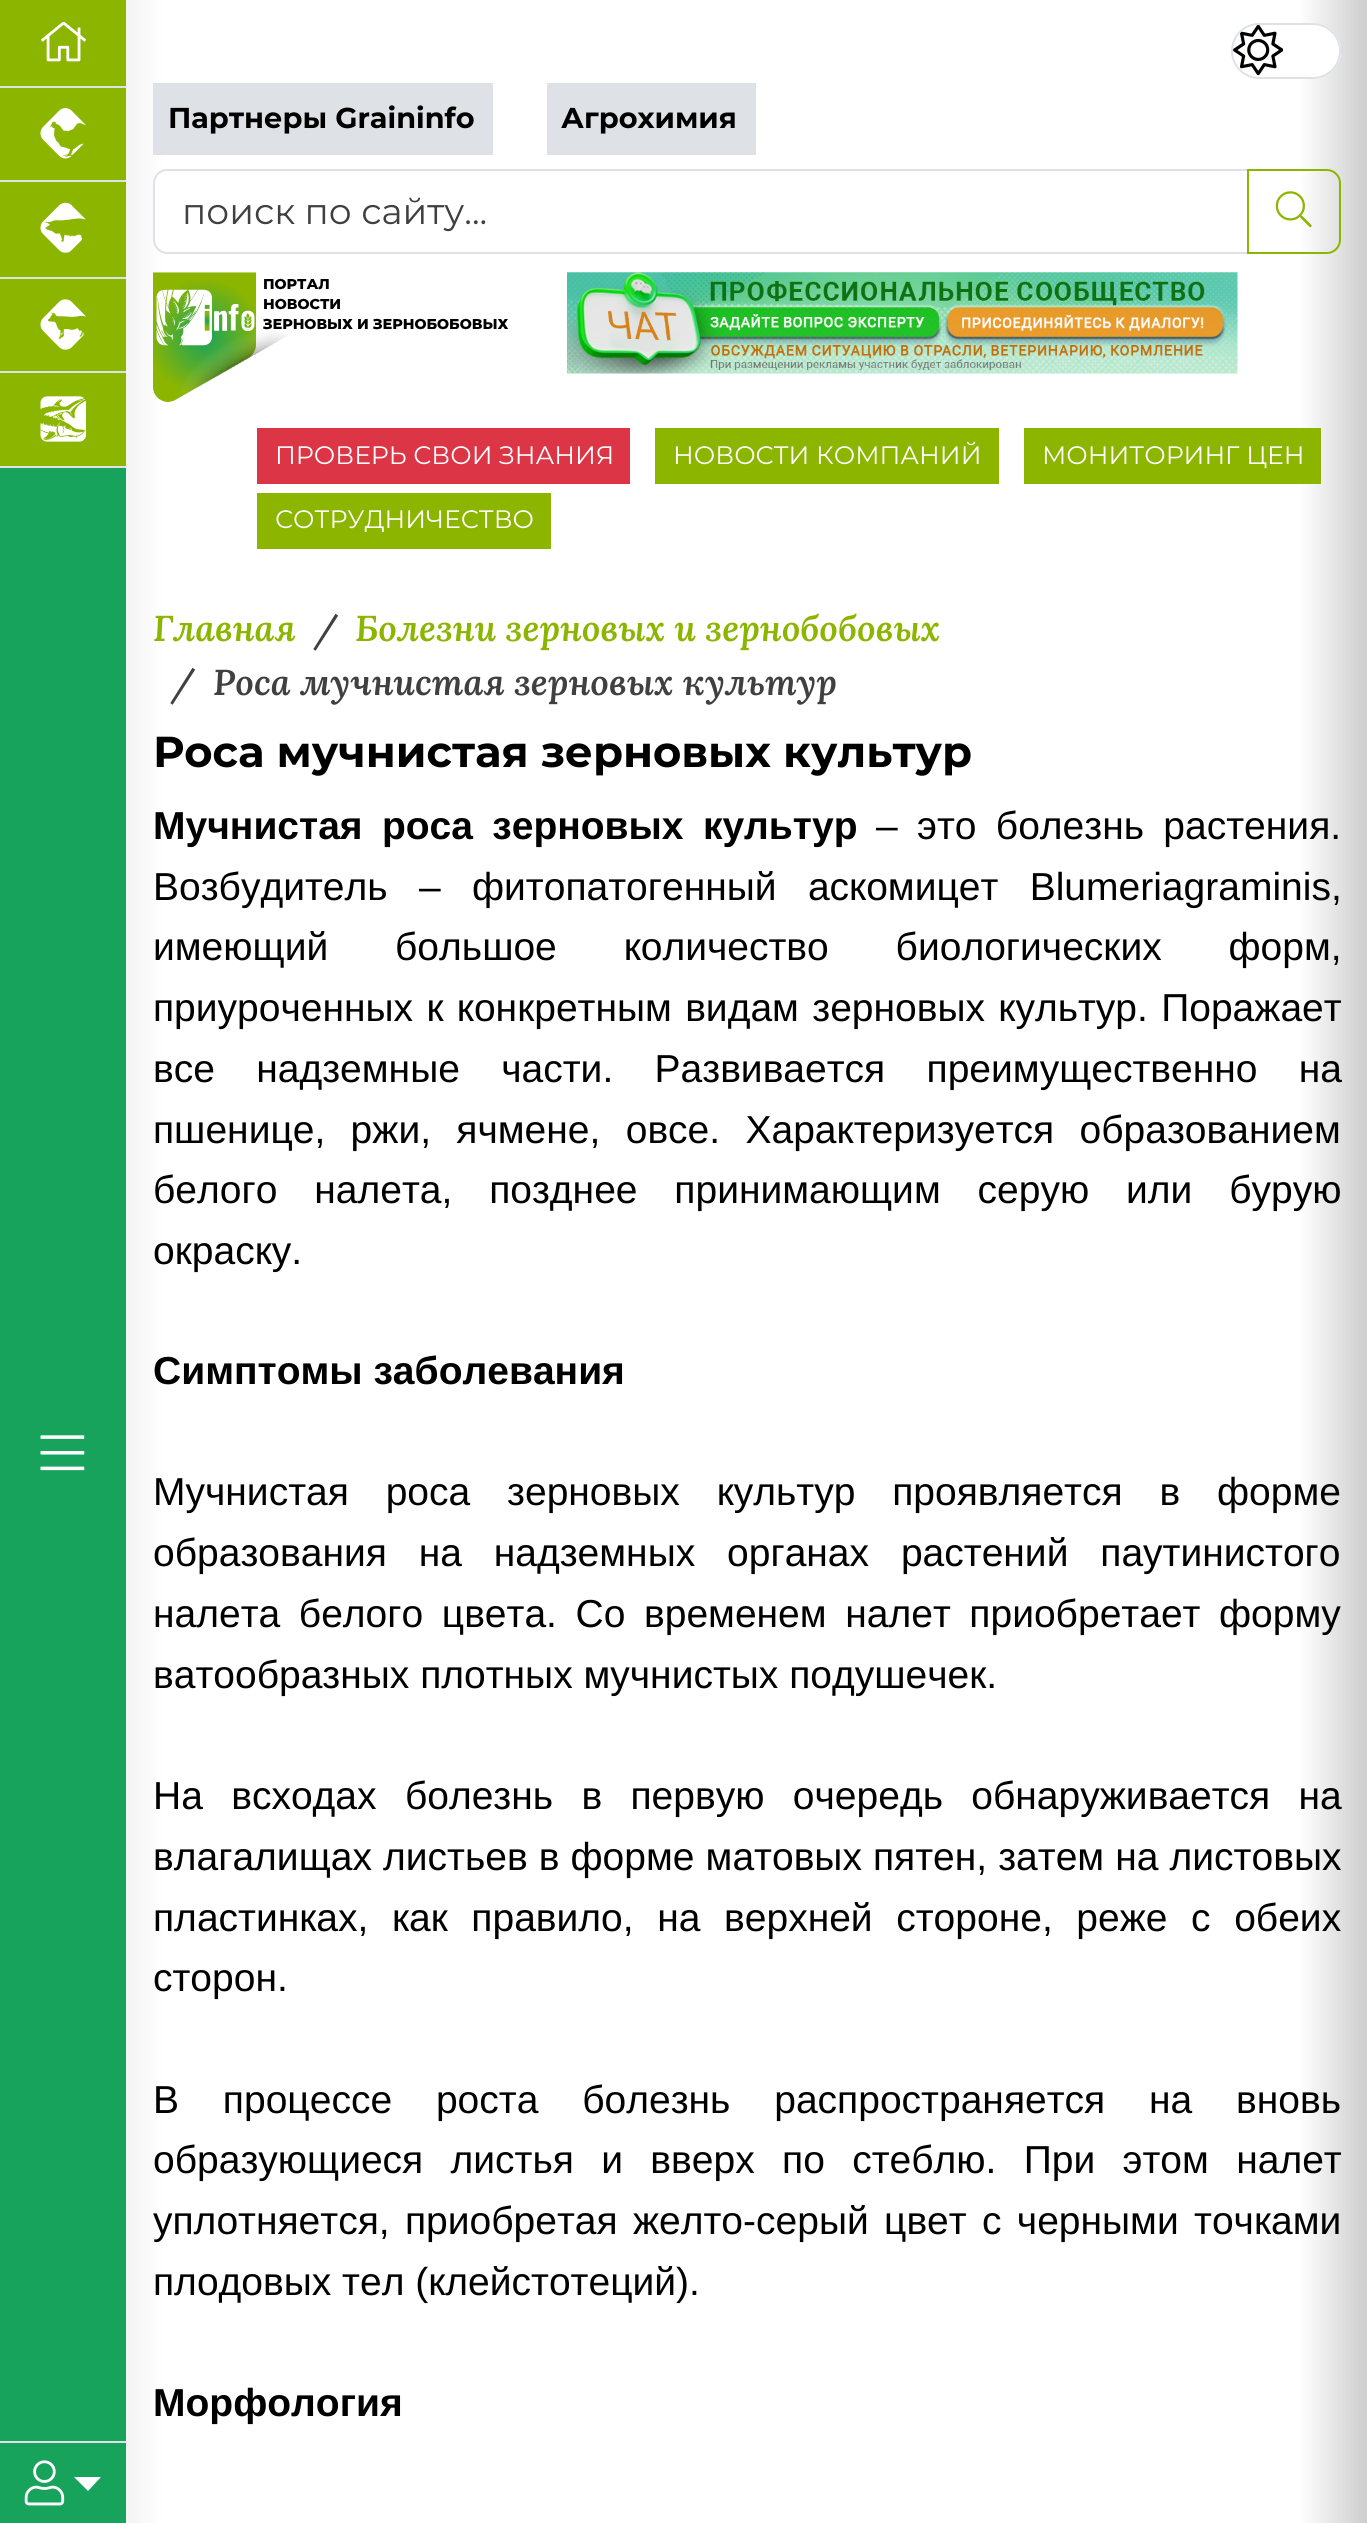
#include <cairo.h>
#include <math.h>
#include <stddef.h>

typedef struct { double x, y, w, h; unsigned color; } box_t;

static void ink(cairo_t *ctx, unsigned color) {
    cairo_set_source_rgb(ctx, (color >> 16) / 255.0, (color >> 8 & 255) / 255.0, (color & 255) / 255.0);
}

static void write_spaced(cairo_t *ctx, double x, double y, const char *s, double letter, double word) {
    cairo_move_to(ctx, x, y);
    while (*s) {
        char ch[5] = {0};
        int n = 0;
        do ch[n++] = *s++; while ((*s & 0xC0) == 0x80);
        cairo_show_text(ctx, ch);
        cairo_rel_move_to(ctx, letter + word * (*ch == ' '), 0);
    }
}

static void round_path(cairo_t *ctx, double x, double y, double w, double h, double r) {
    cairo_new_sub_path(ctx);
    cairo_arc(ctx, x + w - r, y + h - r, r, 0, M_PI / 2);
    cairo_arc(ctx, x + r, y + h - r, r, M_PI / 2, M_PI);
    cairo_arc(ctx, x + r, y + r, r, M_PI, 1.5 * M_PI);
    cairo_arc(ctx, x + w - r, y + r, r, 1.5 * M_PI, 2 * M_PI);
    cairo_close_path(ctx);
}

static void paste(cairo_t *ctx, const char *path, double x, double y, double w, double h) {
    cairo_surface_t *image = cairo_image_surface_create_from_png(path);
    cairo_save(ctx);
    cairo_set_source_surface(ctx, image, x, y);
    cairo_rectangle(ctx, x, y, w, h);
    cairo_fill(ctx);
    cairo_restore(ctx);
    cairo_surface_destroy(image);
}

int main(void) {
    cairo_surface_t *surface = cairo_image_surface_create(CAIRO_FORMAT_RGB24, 1367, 2523);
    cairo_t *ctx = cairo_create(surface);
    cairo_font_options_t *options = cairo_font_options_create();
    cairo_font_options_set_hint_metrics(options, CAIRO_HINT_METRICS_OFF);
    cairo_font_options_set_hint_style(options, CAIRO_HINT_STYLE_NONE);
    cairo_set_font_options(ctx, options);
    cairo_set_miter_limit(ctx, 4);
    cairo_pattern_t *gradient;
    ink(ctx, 0xFFFFFF);
    cairo_paint(ctx);
    gradient = cairo_pattern_create_linear(0, 1262, 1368, 1262);
    cairo_pattern_add_color_stop_rgba(gradient, 0, 0.8, 0.8, 0.8, 1);
    cairo_pattern_add_color_stop_rgba(gradient, 0.12, 1, 1, 1, 1);
    cairo_pattern_add_color_stop_rgba(gradient, 0.95, 1, 1, 1, 1);
    cairo_pattern_add_color_stop_rgba(gradient, 1, 0.8, 0.8, 0.8, 1);
    cairo_set_source(ctx, gradient);
    cairo_pattern_destroy(gradient);
    cairo_rectangle(ctx, 126, 0, 1241, 2523);
    cairo_fill(ctx);
    {
        static const box_t items[] = {
            {0, 468, 126, 2055, 0x18A35C},
            {0, 0, 126, 86, 0x8CB500},
            {0, 86, 126, 2, 0xDEE2E6},
        };
        for (size_t i = 0; i < sizeof items / sizeof *items; i++) {
            ink(ctx, items[i].color);
            cairo_rectangle(ctx, items[i].x, items[i].y, items[i].w, items[i].h);
            cairo_fill(ctx);
        }
    }
    paste(ctx, "media/1.png", 41, 21, 45, 41);
    ink(ctx, 0x8CB500);
    cairo_rectangle(ctx, 0, 88, 126, 92);
    cairo_fill(ctx);
    ink(ctx, 0xDEE2E6);
    cairo_rectangle(ctx, 0, 180, 126, 2);
    cairo_fill(ctx);
    paste(ctx, "media/2.png", 40, 108, 46, 51);
    ink(ctx, 0x8CB500);
    cairo_rectangle(ctx, 0, 182, 126, 95);
    cairo_fill(ctx);
    ink(ctx, 0xDEE2E6);
    cairo_rectangle(ctx, 0, 277, 126, 2);
    cairo_fill(ctx);
    paste(ctx, "media/3.png", 40, 202, 46, 51);
    ink(ctx, 0x8CB500);
    cairo_rectangle(ctx, 0, 279, 126, 187);
    cairo_fill(ctx);
    ink(ctx, 0xDEE2E6);
    cairo_rectangle(ctx, 0, 371, 126, 2);
    cairo_fill(ctx);
    paste(ctx, "media/4.png", 40, 299, 46, 51);
    cairo_rectangle(ctx, 0, 466, 126, 2);
    cairo_fill(ctx);
    paste(ctx, "media/5.png", 40, 396, 46, 46);
    paste(ctx, "media/6.png", 40, 1435, 45, 36);
    cairo_rectangle(ctx, 0, 2441, 126, 2);
    cairo_fill(ctx);
    paste(ctx, "media/7.png", 24, 2460, 41, 46);
    ink(ctx, 0xFFFFFF);
    cairo_new_path(ctx);
    cairo_move_to(ctx, 74, 2477);
    cairo_line_to(ctx, 101, 2477);
    cairo_line_to(ctx, 88, 2491);
    cairo_close_path(ctx);
    cairo_fill(ctx);
    round_path(ctx, 1231, 23, 110, 56, 28);
    cairo_fill(ctx);
    paste(ctx, "media/8.png", 1233, 25, 50, 51);
    round_path(ctx, 1232, 24, 108, 54, 27);
    ink(ctx, 0xDEE2E6);
    cairo_stroke(ctx);
    cairo_rectangle(ctx, 153, 83, 340, 72);
    cairo_fill(ctx);
    cairo_select_font_face(ctx, "Montserrat", CAIRO_FONT_SLANT_NORMAL, CAIRO_FONT_WEIGHT_BOLD);
    cairo_set_font_size(ctx, 28.75);
    ink(ctx, 0x000000);
    cairo_move_to(ctx, 168, 128);
    cairo_show_text(ctx, "Партнеры Graininfo");
    ink(ctx, 0xDEE2E6);
    cairo_rectangle(ctx, 547, 83, 209, 72);
    cairo_fill(ctx);
    ink(ctx, 0x000000);
    cairo_move_to(ctx, 561, 128);
    cairo_show_text(ctx, "Агрохимия");
    ink(ctx, 0xFFFFFF);
    cairo_new_path(ctx);
    cairo_move_to(ctx, 166, 171);
    cairo_line_to(ctx, 1247, 171);
    cairo_line_to(ctx, 1247, 252);
    cairo_line_to(ctx, 166, 252);
    cairo_curve_to(ctx, 160, 252, 155, 247, 155, 241);
    cairo_line_to(ctx, 155, 182);
    cairo_curve_to(ctx, 155, 176, 160, 171, 166, 171);
    cairo_close_path(ctx);
    cairo_fill(ctx);
    cairo_new_path(ctx);
    cairo_move_to(ctx, 167, 170);
    cairo_line_to(ctx, 1248, 170);
    cairo_line_to(ctx, 1248, 253);
    cairo_line_to(ctx, 167, 253);
    cairo_curve_to(ctx, 160, 253, 154, 247, 154, 240);
    cairo_line_to(ctx, 154, 183);
    cairo_curve_to(ctx, 154, 176, 160, 170, 167, 170);
    cairo_close_path(ctx);
    ink(ctx, 0xDEE2E6);
    cairo_stroke(ctx);
    cairo_select_font_face(ctx, "Montserrat", CAIRO_FONT_SLANT_NORMAL, CAIRO_FONT_WEIGHT_NORMAL);
    cairo_set_font_size(ctx, 36);
    ink(ctx, 0x404040);
    cairo_move_to(ctx, 182, 224);
    cairo_show_text(ctx, "поиск по сайту...");
    cairo_new_path(ctx);
    cairo_move_to(ctx, 1248, 170);
    cairo_line_to(ctx, 1327, 170);
    cairo_curve_to(ctx, 1334, 170, 1340, 176, 1340, 183);
    cairo_line_to(ctx, 1340, 240);
    cairo_curve_to(ctx, 1340, 247, 1334, 253, 1327, 253);
    cairo_line_to(ctx, 1248, 253);
    cairo_close_path(ctx);
    ink(ctx, 0x8CB500);
    cairo_stroke(ctx);
    paste(ctx, "media/9.png", 1275, 191, 37, 37);
    paste(ctx, "media/10.png", 153, 272, 356, 130);
    paste(ctx, "media/11.png", 567, 272, 671, 102);
    ink(ctx, 0xDC3545);
    cairo_rectangle(ctx, 257, 428, 373, 56);
    cairo_fill(ctx);
    cairo_set_font_size(ctx, 25.25);
    ink(ctx, 0xFFFFFF);
    cairo_move_to(ctx, 275, 464);
    cairo_show_text(ctx, "ПРОВЕРЬ СВОИ ЗНАНИЯ");
    ink(ctx, 0x8CB500);
    cairo_rectangle(ctx, 655, 428, 344, 56);
    cairo_fill(ctx);
    ink(ctx, 0xFFFFFF);
    cairo_move_to(ctx, 673, 464);
    cairo_show_text(ctx, "НОВОСТИ КОМПАНИЙ");
    ink(ctx, 0x8CB500);
    cairo_rectangle(ctx, 1024, 428, 297, 56);
    cairo_fill(ctx);
    ink(ctx, 0xFFFFFF);
    cairo_move_to(ctx, 1042, 464);
    cairo_show_text(ctx, "МОНИТОРИНГ ЦЕН");
    ink(ctx, 0x8CB500);
    cairo_rectangle(ctx, 257, 493, 294, 56);
    cairo_fill(ctx);
    ink(ctx, 0xFFFFFF);
    cairo_move_to(ctx, 275, 528);
    cairo_show_text(ctx, "СОТРУДНИЧЕСТВО");
    cairo_select_font_face(ctx, "Lora SemiBold", CAIRO_FONT_SLANT_ITALIC, CAIRO_FONT_WEIGHT_NORMAL);
    cairo_set_font_size(ctx, 36);
    ink(ctx, 0x8CB500);
    cairo_move_to(ctx, 153, 641);
    cairo_show_text(ctx, "Главная");
    ink(ctx, 0x404040);
    cairo_move_to(ctx, 314, 641);
    cairo_show_text(ctx, "/");
    ink(ctx, 0x8CB500);
    cairo_move_to(ctx, 355, 641);
    cairo_show_text(ctx, "Болезни зерновых и зернобобовых");
    ink(ctx, 0x404040);
    cairo_move_to(ctx, 171, 695);
    cairo_show_text(ctx, "/");
    cairo_move_to(ctx, 213, 695);
    cairo_show_text(ctx, "Роса мучнистая зерновых культур");
    cairo_select_font_face(ctx, "Montserrat", CAIRO_FONT_SLANT_NORMAL, CAIRO_FONT_WEIGHT_BOLD);
    cairo_set_font_size(ctx, 43.25);
    ink(ctx, 0x000000);
    cairo_move_to(ctx, 153, 767);
    cairo_show_text(ctx, "Роса мучнистая зерновых культур");
    cairo_select_font_face(ctx, "Liberation Sans", CAIRO_FONT_SLANT_NORMAL, CAIRO_FONT_WEIGHT_BOLD);
    cairo_set_font_size(ctx, 39);
    write_spaced(ctx, 153, 839, "Мучнистая роса зерновых культур", 0, 8.5);
    cairo_select_font_face(ctx, "Liberation Sans", CAIRO_FONT_SLANT_NORMAL, CAIRO_FONT_WEIGHT_NORMAL);
    write_spaced(ctx, 876, 839, "– это болезнь растения.", 0, 8.5);
    write_spaced(ctx, 153, 900, "Возбудитель – фитопатогенный аскомицет Blumeriagraminis,", 0, 20.5);
    write_spaced(ctx, 153, 960, "имеющий большое количество биологических форм,", 0, 56);
    write_spaced(ctx, 153, 1021, "приуроченных к конкретным видам зерновых культур. Поражает", 0, 2.5);
    write_spaced(ctx, 153, 1082, "все надземные части. Развивается преимущественно на", 0, 30.5);
    write_spaced(ctx, 153, 1143, "пшенице, ржи, ячмене, овсе. Характеризуется образованием", 0, 14.5);
    write_spaced(ctx, 153, 1203, "белого налета, позднее принимающим серую или бурую", 0, 26);
    cairo_move_to(ctx, 153, 1264);
    cairo_show_text(ctx, "окраску.");
    cairo_select_font_face(ctx, "Liberation Sans", CAIRO_FONT_SLANT_NORMAL, CAIRO_FONT_WEIGHT_BOLD);
    cairo_move_to(ctx, 153, 1384);
    cairo_show_text(ctx, "Симптомы заболевания");
    cairo_select_font_face(ctx, "Liberation Sans", CAIRO_FONT_SLANT_NORMAL, CAIRO_FONT_WEIGHT_NORMAL);
    write_spaced(ctx, 153, 1505, "Мучнистая роса зерновых культур проявляется в форме", 0, 26);
    write_spaced(ctx, 153, 1566, "образования на надземных органах растений паутинистого", 0, 21);
    write_spaced(ctx, 153, 1627, "налета белого цвета. Со временем налет приобретает форму", 0, 7.75);
    cairo_move_to(ctx, 153, 1688);
    cairo_show_text(ctx, "ватообразных плотных мучнистых подушечек.");
    write_spaced(ctx, 153, 1809, "На всходах болезнь в первую очередь обнаруживается на", 0, 17.5);
    write_spaced(ctx, 153, 1870, "влагалищах листьев в форме матовых пятен, затем на листовых", 0, 0.25);
    write_spaced(ctx, 153, 1931, "пластинках, как правило, на верхней стороне, реже с обеих", 0, 12.75);
    cairo_move_to(ctx, 153, 1991);
    cairo_show_text(ctx, "сторон.");
    write_spaced(ctx, 153, 2113, "В процессе роста болезнь распространяется на вновь", 0, 33);
    write_spaced(ctx, 153, 2173, "образующиеся листья и вверх по стеблю. При этом налет", 0, 16.5);
    write_spaced(ctx, 153, 2234, "уплотняется, приобретая желто-серый цвет с черными точками", 0, 4.5);
    cairo_move_to(ctx, 153, 2295);
    cairo_show_text(ctx, "плодовых тел (клейстотеций).");
    cairo_select_font_face(ctx, "Liberation Sans", CAIRO_FONT_SLANT_NORMAL, CAIRO_FONT_WEIGHT_BOLD);
    cairo_move_to(ctx, 153, 2416);
    cairo_show_text(ctx, "Морфология");
    cairo_surface_write_to_png(surface, "image.png");
    cairo_font_options_destroy(options);
    cairo_destroy(ctx);
    cairo_surface_destroy(surface);
    return 0;
}
